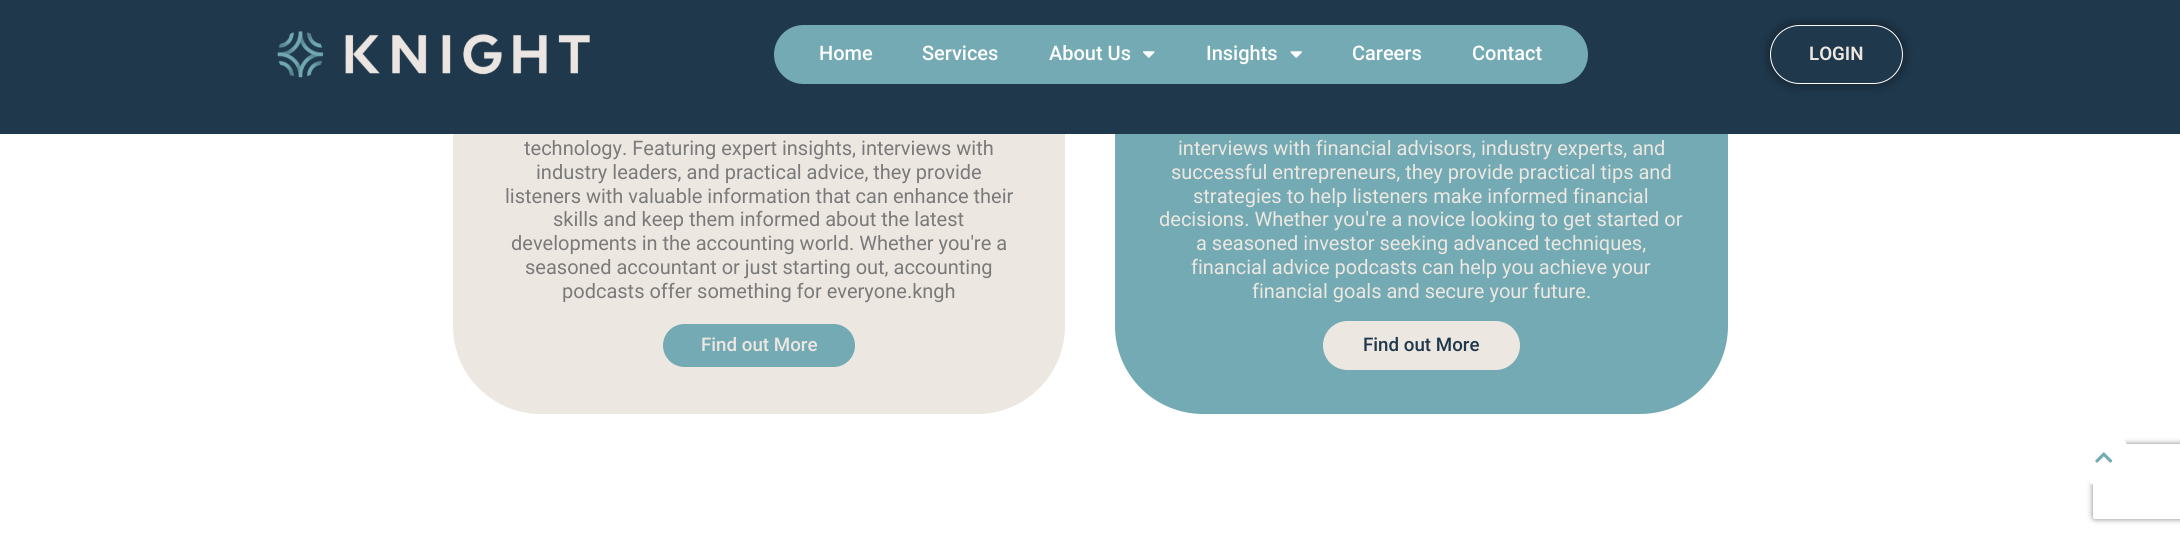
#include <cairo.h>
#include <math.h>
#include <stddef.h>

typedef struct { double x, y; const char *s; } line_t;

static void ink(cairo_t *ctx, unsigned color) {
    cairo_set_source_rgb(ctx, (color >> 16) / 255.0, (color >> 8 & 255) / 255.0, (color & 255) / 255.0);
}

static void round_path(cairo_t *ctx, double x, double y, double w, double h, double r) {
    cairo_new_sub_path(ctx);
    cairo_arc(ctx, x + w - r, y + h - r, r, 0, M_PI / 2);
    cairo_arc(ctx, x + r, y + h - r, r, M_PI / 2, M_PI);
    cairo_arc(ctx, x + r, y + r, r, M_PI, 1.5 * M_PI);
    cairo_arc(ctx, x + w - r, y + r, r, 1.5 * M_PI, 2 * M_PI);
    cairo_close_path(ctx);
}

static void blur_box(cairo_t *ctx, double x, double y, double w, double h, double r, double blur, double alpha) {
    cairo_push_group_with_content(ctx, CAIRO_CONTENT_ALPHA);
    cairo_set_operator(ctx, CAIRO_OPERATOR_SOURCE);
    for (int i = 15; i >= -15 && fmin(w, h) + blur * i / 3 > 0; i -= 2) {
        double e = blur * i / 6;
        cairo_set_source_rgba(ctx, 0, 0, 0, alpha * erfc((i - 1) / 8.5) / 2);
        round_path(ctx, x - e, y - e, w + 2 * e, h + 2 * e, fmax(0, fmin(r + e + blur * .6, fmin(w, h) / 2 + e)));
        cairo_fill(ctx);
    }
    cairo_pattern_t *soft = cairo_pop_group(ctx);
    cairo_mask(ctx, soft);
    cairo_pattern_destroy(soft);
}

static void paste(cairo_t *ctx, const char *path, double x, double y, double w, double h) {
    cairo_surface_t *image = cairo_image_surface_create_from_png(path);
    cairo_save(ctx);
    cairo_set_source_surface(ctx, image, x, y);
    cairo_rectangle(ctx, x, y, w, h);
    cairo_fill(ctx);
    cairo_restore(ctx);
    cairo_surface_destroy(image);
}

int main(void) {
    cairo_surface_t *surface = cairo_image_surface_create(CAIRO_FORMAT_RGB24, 2180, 536);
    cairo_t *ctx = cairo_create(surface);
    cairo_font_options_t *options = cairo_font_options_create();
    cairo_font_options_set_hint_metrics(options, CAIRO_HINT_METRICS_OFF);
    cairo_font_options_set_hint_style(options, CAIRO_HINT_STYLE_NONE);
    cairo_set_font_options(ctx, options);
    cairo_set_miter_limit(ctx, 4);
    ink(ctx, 0xFFFFFF);
    cairo_paint(ctx);
    ink(ctx, 0xEDE7E1);
    round_path(ctx, 453, -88, 612, 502, 88);
    cairo_fill(ctx);
    ink(ctx, 0x73AAB3);
    round_path(ctx, 1115, -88, 613, 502, 88);
    cairo_fill(ctx);
    ink(ctx, 0x1F384C);
    cairo_rectangle(ctx, 0, 0, 2180, 134);
    cairo_fill(ctx);
    paste(ctx, "media/1.png", 277, 31, 313, 47);
    ink(ctx, 0x73AAB3);
    round_path(ctx, 774, 25, 814, 59, 29.5);
    cairo_fill(ctx);
    cairo_select_font_face(ctx, "Roboto Medium", CAIRO_FONT_SLANT_NORMAL, CAIRO_FONT_WEIGHT_NORMAL);
    cairo_set_font_size(ctx, 20);
    ink(ctx, 0xFFFFFF);
    {
        static const line_t items[] = {
            {819, 60, "Home"},
            {922, 60, "Services"},
            {1049, 60, "About Us"},
        };
        for (size_t i = 0; i < sizeof items / sizeof *items; i++) {
            cairo_move_to(ctx, items[i].x, items[i].y);
            cairo_show_text(ctx, items[i].s);
        }
    }
    paste(ctx, "media/2.png", 1143, 51, 12, 7);
    cairo_move_to(ctx, 1206, 60);
    cairo_show_text(ctx, "Insights");
    paste(ctx, "media/3.png", 1290, 51, 12, 7);
    cairo_move_to(ctx, 1352, 60);
    cairo_show_text(ctx, "Careers");
    cairo_move_to(ctx, 1472, 60);
    cairo_show_text(ctx, "Contact");
    ink(ctx, 0x000000);
    blur_box(ctx, 1770, 25, 133, 59, 29.5, 6, 0.5);
    ink(ctx, 0x1F384C);
    round_path(ctx, 1770.5, 25.5, 132, 58, 29);
    cairo_fill_preserve(ctx);
    ink(ctx, 0xFFFFFF);
    cairo_set_line_width(ctx, 1);
    cairo_stroke(ctx);
    cairo_select_font_face(ctx, "Roboto SemiBold", CAIRO_FONT_SLANT_NORMAL, CAIRO_FONT_WEIGHT_NORMAL);
    cairo_set_font_size(ctx, 18.75);
    ink(ctx, 0xEDE7E1);
    cairo_move_to(ctx, 1809, 60);
    cairo_show_text(ctx, "LOGIN");
    cairo_select_font_face(ctx, "Roboto", CAIRO_FONT_SLANT_NORMAL, CAIRO_FONT_WEIGHT_NORMAL);
    cairo_set_font_size(ctx, 20);
    ink(ctx, 0x7A7A7A);
    {
        static const line_t items[] = {
            {524, 155, "technology. Featuring expert insights, interviews with"},
            {536, 179, "industry leaders, and practical advice, they provide"},
            {505, 203, "listeners with valuable information that can enhance their"},
            {553, 226, "skills and keep them informed about the latest"},
            {511, 250, "developments in the accounting world. Whether you're a"},
            {525, 274, "seasoned accountant or just starting out, accounting"},
            {562, 298, "podcasts offer something for everyone.kngh"},
        };
        for (size_t i = 0; i < sizeof items / sizeof *items; i++) {
            cairo_move_to(ctx, items[i].x, items[i].y);
            cairo_show_text(ctx, items[i].s);
        }
    }
    ink(ctx, 0x73AAB3);
    round_path(ctx, 661.5, 322.5, 195, 46, 23);
    cairo_fill_preserve(ctx);
    ink(ctx, 0xEDE7E1);
    cairo_set_line_width(ctx, 3);
    cairo_stroke(ctx);
    cairo_select_font_face(ctx, "Roboto Medium", CAIRO_FONT_SLANT_NORMAL, CAIRO_FONT_WEIGHT_NORMAL);
    cairo_set_font_size(ctx, 18.75);
    cairo_move_to(ctx, 701, 351);
    cairo_show_text(ctx, "Find out More");
    cairo_select_font_face(ctx, "Roboto", CAIRO_FONT_SLANT_NORMAL, CAIRO_FONT_WEIGHT_NORMAL);
    cairo_set_font_size(ctx, 20);
    {
        static const line_t items[] = {
            {1178, 155, "interviews with financial advisors, industry experts, and"},
            {1171, 179, "successful entrepreneurs, they provide practical tips and"},
            {1193, 203, "strategies to help listeners make informed financial"},
            {1159, 226, "decisions. Whether you're a novice looking to get started or"},
            {1196, 250, "a seasoned investor seeking advanced techniques,"},
            {1191, 274, "financial advice podcasts can help you achieve your"},
            {1252, 298, "financial goals and secure your future."},
        };
        for (size_t i = 0; i < sizeof items / sizeof *items; i++) {
            cairo_move_to(ctx, items[i].x, items[i].y);
            cairo_show_text(ctx, items[i].s);
        }
    }
    round_path(ctx, 1324.5, 322.5, 194, 46, 23);
    cairo_fill_preserve(ctx);
    cairo_stroke(ctx);
    cairo_select_font_face(ctx, "Roboto Medium", CAIRO_FONT_SLANT_NORMAL, CAIRO_FONT_WEIGHT_NORMAL);
    cairo_set_font_size(ctx, 18.75);
    ink(ctx, 0x1F384C);
    cairo_move_to(ctx, 1363, 351);
    cairo_show_text(ctx, "Find out More");
    cairo_save(ctx);
    cairo_set_fill_rule(ctx, CAIRO_FILL_RULE_EVEN_ODD);
    cairo_new_path(ctx);
    cairo_move_to(ctx, 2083, 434);
    cairo_line_to(ctx, 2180, 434);
    cairo_line_to(ctx, 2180, 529);
    cairo_line_to(ctx, 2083, 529);
    cairo_close_path(ctx);
    cairo_move_to(ctx, 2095.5, 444);
    cairo_line_to(ctx, 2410.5, 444);
    cairo_curve_to(ctx, 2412, 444, 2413, 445, 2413, 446.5);
    cairo_line_to(ctx, 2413, 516.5);
    cairo_curve_to(ctx, 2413, 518, 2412, 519, 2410.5, 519);
    cairo_line_to(ctx, 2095.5, 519);
    cairo_curve_to(ctx, 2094, 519, 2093, 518, 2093, 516.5);
    cairo_line_to(ctx, 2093, 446.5);
    cairo_curve_to(ctx, 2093, 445, 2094, 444, 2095.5, 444);
    cairo_close_path(ctx);
    cairo_clip(ctx);
    ink(ctx, 0x808080);
    blur_box(ctx, 2093, 444, 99, 75, 2.5, 3, 1);
    cairo_restore(ctx);
    ink(ctx, 0xFFFFFF);
    cairo_new_path(ctx);
    cairo_move_to(ctx, 2102.5, 428.5);
    cairo_curve_to(ctx, 2117.5, 428.5, 2130, 441.5, 2130, 457.5);
    cairo_curve_to(ctx, 2130, 473.5, 2117.5, 486.5, 2102.5, 486.5);
    cairo_curve_to(ctx, 2087.5, 486.5, 2075, 473.5, 2075, 457.5);
    cairo_curve_to(ctx, 2075, 441.5, 2087.5, 428.5, 2102.5, 428.5);
    cairo_close_path(ctx);
    cairo_fill(ctx);
    paste(ctx, "media/4.png", 2095, 452, 18, 11);
    cairo_surface_write_to_png(surface, "image.png");
    cairo_font_options_destroy(options);
    cairo_destroy(ctx);
    cairo_surface_destroy(surface);
    return 0;
}
